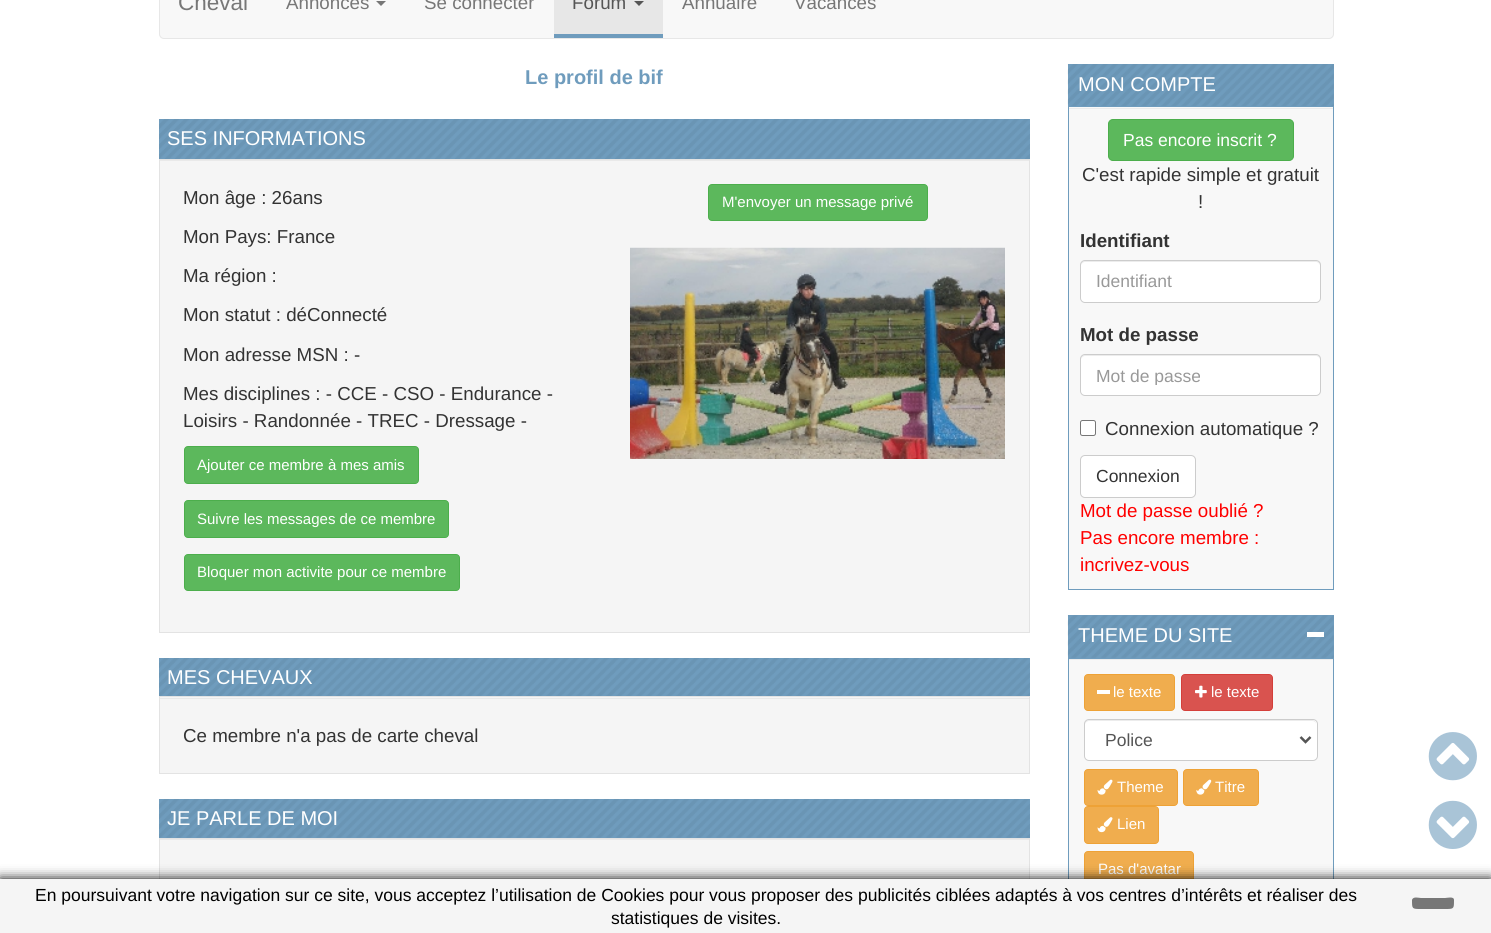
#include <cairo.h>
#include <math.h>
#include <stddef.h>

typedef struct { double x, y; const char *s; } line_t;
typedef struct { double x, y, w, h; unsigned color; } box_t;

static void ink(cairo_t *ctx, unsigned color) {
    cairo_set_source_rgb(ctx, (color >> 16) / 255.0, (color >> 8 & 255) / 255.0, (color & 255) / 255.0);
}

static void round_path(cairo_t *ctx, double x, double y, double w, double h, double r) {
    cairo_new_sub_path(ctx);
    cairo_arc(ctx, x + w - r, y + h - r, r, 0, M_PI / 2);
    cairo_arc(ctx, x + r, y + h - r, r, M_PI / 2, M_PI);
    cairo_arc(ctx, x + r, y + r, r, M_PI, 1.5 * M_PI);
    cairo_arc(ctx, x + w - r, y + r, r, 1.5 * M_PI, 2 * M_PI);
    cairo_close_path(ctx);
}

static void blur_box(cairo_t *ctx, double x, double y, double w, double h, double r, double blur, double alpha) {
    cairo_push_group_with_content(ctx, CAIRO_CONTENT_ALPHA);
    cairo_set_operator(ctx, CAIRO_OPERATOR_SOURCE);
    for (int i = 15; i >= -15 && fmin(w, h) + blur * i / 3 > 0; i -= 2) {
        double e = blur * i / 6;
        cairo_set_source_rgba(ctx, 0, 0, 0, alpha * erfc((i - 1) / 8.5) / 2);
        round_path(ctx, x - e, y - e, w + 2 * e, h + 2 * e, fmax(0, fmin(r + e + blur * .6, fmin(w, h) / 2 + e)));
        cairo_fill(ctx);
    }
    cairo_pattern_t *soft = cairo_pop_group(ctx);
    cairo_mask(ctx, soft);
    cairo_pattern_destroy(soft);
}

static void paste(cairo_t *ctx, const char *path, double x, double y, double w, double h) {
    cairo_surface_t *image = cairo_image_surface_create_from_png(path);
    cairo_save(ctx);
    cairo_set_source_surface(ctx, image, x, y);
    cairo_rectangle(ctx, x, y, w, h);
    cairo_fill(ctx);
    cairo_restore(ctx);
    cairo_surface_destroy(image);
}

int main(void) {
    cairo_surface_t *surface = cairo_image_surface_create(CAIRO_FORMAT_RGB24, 1491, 933);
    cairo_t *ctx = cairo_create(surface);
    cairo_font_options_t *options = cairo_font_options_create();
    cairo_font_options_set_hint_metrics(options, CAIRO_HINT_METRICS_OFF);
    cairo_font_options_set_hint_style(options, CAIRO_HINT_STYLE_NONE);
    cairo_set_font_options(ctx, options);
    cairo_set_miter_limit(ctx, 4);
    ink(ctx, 0xFFFFFF);
    cairo_paint(ctx);
    ink(ctx, 0xF8F8F8);
    round_path(ctx, 159.5, -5.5, 1174, 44, 4.5);
    cairo_fill_preserve(ctx);
    ink(ctx, 0xE7E7E7);
    cairo_set_line_width(ctx, 1);
    cairo_stroke(ctx);
    cairo_select_font_face(ctx, "Liberation Sans", CAIRO_FONT_SLANT_NORMAL, CAIRO_FONT_WEIGHT_NORMAL);
    cairo_set_font_size(ctx, 22.5);
    ink(ctx, 0x777777);
    cairo_move_to(ctx, 178, 10);
    cairo_show_text(ctx, "Cheval");
    cairo_set_font_size(ctx, 18.75);
    cairo_move_to(ctx, 286, 9);
    cairo_show_text(ctx, "Annonces");
    cairo_new_path(ctx);
    cairo_move_to(ctx, 376, 1);
    cairo_line_to(ctx, 386, 1);
    cairo_line_to(ctx, 381, 6);
    cairo_close_path(ctx);
    cairo_fill(ctx);
    cairo_move_to(ctx, 424, 9);
    cairo_show_text(ctx, "Se connecter");
    ink(ctx, 0x6F9CBD);
    cairo_rectangle(ctx, 554, 34, 109, 4);
    cairo_fill(ctx);
    ink(ctx, 0xE7E7E7);
    cairo_rectangle(ctx, 554, 0, 109, 34);
    cairo_fill(ctx);
    ink(ctx, 0x555555);
    cairo_move_to(ctx, 572, 9);
    cairo_show_text(ctx, "Forum");
    cairo_new_path(ctx);
    cairo_move_to(ctx, 634, 1);
    cairo_line_to(ctx, 644, 1);
    cairo_line_to(ctx, 639, 6);
    cairo_close_path(ctx);
    cairo_fill(ctx);
    ink(ctx, 0x777777);
    cairo_move_to(ctx, 682, 9);
    cairo_show_text(ctx, "Annuaire");
    cairo_move_to(ctx, 794, 9);
    cairo_show_text(ctx, "Vacances");
    cairo_select_font_face(ctx, "Liberation Sans", CAIRO_FONT_SLANT_NORMAL, CAIRO_FONT_WEIGHT_BOLD);
    cairo_set_font_size(ctx, 20);
    ink(ctx, 0x6F9CBD);
    cairo_move_to(ctx, 525, 84);
    cairo_show_text(ctx, "Le profil de bif");
    cairo_rectangle(ctx, 159, 119, 871, 40);
    cairo_fill(ctx);
    paste(ctx, "media/1.png", 159, 119, 871, 40);
    cairo_select_font_face(ctx, "Liberation Sans", CAIRO_FONT_SLANT_NORMAL, CAIRO_FONT_WEIGHT_NORMAL);
    ink(ctx, 0xFFFFFF);
    cairo_move_to(ctx, 167, 145);
    cairo_show_text(ctx, "SES INFORMATIONS");
    ink(ctx, 0xF5F5F5);
    cairo_rectangle(ctx, 160, 161, 869, 471);
    cairo_fill(ctx);
    ink(ctx, 0xE9E9E9);
    cairo_rectangle(ctx, 160, 160, 869, 1);
    cairo_fill(ctx);
    cairo_rectangle(ctx, 159.5, 159.5, 870, 473);
    ink(ctx, 0xE3E3E3);
    cairo_stroke(ctx);
    cairo_set_font_size(ctx, 18.75);
    ink(ctx, 0x333333);
    {
        static const line_t items[] = {
            {183, 204, "Mon âge : 26ans"},
            {183, 243, "Mon Pays: France"},
            {183, 282, "Ma région :"},
            {183, 321, "Mon statut : déConnecté"},
            {183, 361, "Mon adresse MSN : -"},
            {183, 400, "Mes disciplines : - CCE - CSO - Endurance -"},
            {183, 427, "Loisirs - Randonnée - TREC - Dressage -"},
        };
        for (size_t i = 0; i < sizeof items / sizeof *items; i++) {
            cairo_move_to(ctx, items[i].x, items[i].y);
            cairo_show_text(ctx, items[i].s);
        }
    }
    ink(ctx, 0x5CB85C);
    round_path(ctx, 184.5, 446.5, 234, 37, 3.5);
    cairo_fill_preserve(ctx);
    ink(ctx, 0x4CAE4C);
    cairo_stroke(ctx);
    cairo_set_font_size(ctx, 15);
    ink(ctx, 0xFFFFFF);
    cairo_move_to(ctx, 197, 470);
    cairo_show_text(ctx, "Ajouter ce membre à mes amis");
    ink(ctx, 0x5CB85C);
    round_path(ctx, 184.5, 500.5, 264, 37, 3.5);
    cairo_fill_preserve(ctx);
    ink(ctx, 0x4CAE4C);
    cairo_stroke(ctx);
    ink(ctx, 0xFFFFFF);
    cairo_move_to(ctx, 197, 524);
    cairo_show_text(ctx, "Suivre les messages de ce membre");
    ink(ctx, 0x5CB85C);
    round_path(ctx, 184.5, 554.5, 275, 36, 3.5);
    cairo_fill_preserve(ctx);
    ink(ctx, 0x4CAE4C);
    cairo_stroke(ctx);
    ink(ctx, 0xFFFFFF);
    cairo_move_to(ctx, 197, 577);
    cairo_show_text(ctx, "Bloquer mon activite pour ce membre");
    ink(ctx, 0x5CB85C);
    round_path(ctx, 708.5, 184.5, 219, 36, 3.5);
    cairo_fill_preserve(ctx);
    ink(ctx, 0x4CAE4C);
    cairo_stroke(ctx);
    ink(ctx, 0xFFFFFF);
    cairo_move_to(ctx, 722, 207);
    cairo_show_text(ctx, "M'envoyer un message privé");
    paste(ctx, "media/2.png", 630, 247, 375, 212);
    ink(ctx, 0x6F9CBD);
    cairo_rectangle(ctx, 159, 658, 871, 38);
    cairo_fill(ctx);
    paste(ctx, "media/3.png", 159, 658, 871, 38);
    cairo_set_font_size(ctx, 20);
    ink(ctx, 0xFFFFFF);
    cairo_move_to(ctx, 167, 684);
    cairo_show_text(ctx, "MES CHEVAUX");
    ink(ctx, 0xF5F5F5);
    cairo_rectangle(ctx, 160, 697, 869, 76);
    cairo_fill(ctx);
    ink(ctx, 0xE9E9E9);
    cairo_rectangle(ctx, 160, 698, 869, 1);
    cairo_fill(ctx);
    cairo_rectangle(ctx, 159.5, 696.5, 870, 77);
    ink(ctx, 0xE3E3E3);
    cairo_stroke(ctx);
    cairo_set_font_size(ctx, 18.75);
    ink(ctx, 0x333333);
    cairo_move_to(ctx, 183, 742);
    cairo_show_text(ctx, "Ce membre n'a pas de carte cheval");
    ink(ctx, 0x6F9CBD);
    cairo_rectangle(ctx, 159, 799, 871, 39);
    cairo_fill(ctx);
    paste(ctx, "media/4.png", 159, 799, 871, 39);
    cairo_set_font_size(ctx, 20);
    ink(ctx, 0xFFFFFF);
    cairo_move_to(ctx, 167, 825);
    cairo_show_text(ctx, "JE PARLE DE MOI");
    ink(ctx, 0xF5F5F5);
    cairo_rectangle(ctx, 160, 840, 869, 39);
    cairo_fill(ctx);
    ink(ctx, 0xE9E9E9);
    cairo_rectangle(ctx, 160, 839, 869, 1);
    cairo_fill(ctx);
    cairo_rectangle(ctx, 159.5, 838.5, 870, 50);
    ink(ctx, 0xE3E3E3);
    cairo_stroke(ctx);
    ink(ctx, 0x6F9CBD);
    cairo_rectangle(ctx, 1068, 64, 266, 42);
    cairo_fill(ctx);
    paste(ctx, "media/5.png", 1067, 64, 267, 42);
    ink(ctx, 0xFFFFFF);
    cairo_move_to(ctx, 1078, 91);
    cairo_show_text(ctx, "MON COMPTE");
    ink(ctx, 0xF8F8F8);
    cairo_rectangle(ctx, 1069, 107, 264, 482);
    cairo_fill(ctx);
    ink(ctx, 0xECECEC);
    cairo_rectangle(ctx, 1069, 108, 264, 1);
    cairo_fill(ctx);
    cairo_rectangle(ctx, 1068.5, 106.5, 265, 483);
    ink(ctx, 0x6F9CBD);
    cairo_stroke(ctx);
    ink(ctx, 0x5CB85C);
    round_path(ctx, 1108.5, 119.5, 185, 41, 4.5);
    cairo_fill_preserve(ctx);
    ink(ctx, 0x4CAE4C);
    cairo_stroke(ctx);
    cairo_set_font_size(ctx, 17.5);
    ink(ctx, 0xFFFFFF);
    cairo_move_to(ctx, 1123, 146);
    cairo_show_text(ctx, "Pas encore inscrit ?");
    cairo_set_font_size(ctx, 18.75);
    ink(ctx, 0x333333);
    cairo_move_to(ctx, 1082, 181);
    cairo_show_text(ctx, "C'est rapide simple et gratuit");
    cairo_move_to(ctx, 1198, 208);
    cairo_show_text(ctx, "!");
    cairo_select_font_face(ctx, "Liberation Sans", CAIRO_FONT_SLANT_NORMAL, CAIRO_FONT_WEIGHT_BOLD);
    cairo_move_to(ctx, 1080, 247);
    cairo_show_text(ctx, "Identifiant");
    ink(ctx, 0xFFFFFF);
    round_path(ctx, 1080, 260, 241, 43, 5);
    cairo_fill(ctx);
    ink(ctx, 0xECECEC);
    cairo_new_path(ctx);
    cairo_move_to(ctx, 1085, 262);
    cairo_line_to(ctx, 1316, 262);
    cairo_curve_to(ctx, 1318, 262, 1320, 264, 1320, 266);
    cairo_curve_to(ctx, 1320, 263, 1319, 261, 1316, 261);
    cairo_line_to(ctx, 1085, 261);
    cairo_curve_to(ctx, 1082, 261, 1081, 263, 1081, 266);
    cairo_curve_to(ctx, 1081, 264, 1083, 262, 1085, 262);
    cairo_close_path(ctx);
    cairo_fill(ctx);
    round_path(ctx, 1080.5, 260.5, 240, 42, 4.5);
    ink(ctx, 0xCCCCCC);
    cairo_stroke(ctx);
    cairo_select_font_face(ctx, "Liberation Sans", CAIRO_FONT_SLANT_NORMAL, CAIRO_FONT_WEIGHT_NORMAL);
    cairo_set_font_size(ctx, 17.5);
    ink(ctx, 0x999999);
    cairo_move_to(ctx, 1096, 287);
    cairo_show_text(ctx, "Identifiant");
    cairo_select_font_face(ctx, "Liberation Sans", CAIRO_FONT_SLANT_NORMAL, CAIRO_FONT_WEIGHT_BOLD);
    cairo_set_font_size(ctx, 18.75);
    ink(ctx, 0x333333);
    cairo_move_to(ctx, 1080, 341);
    cairo_show_text(ctx, "Mot de passe");
    ink(ctx, 0xFFFFFF);
    round_path(ctx, 1080, 354, 241, 42, 5);
    cairo_fill(ctx);
    ink(ctx, 0xECECEC);
    cairo_new_path(ctx);
    cairo_move_to(ctx, 1085, 356);
    cairo_line_to(ctx, 1316, 356);
    cairo_curve_to(ctx, 1318, 356, 1320, 358, 1320, 360);
    cairo_curve_to(ctx, 1320, 357, 1319, 355, 1316, 355);
    cairo_line_to(ctx, 1085, 355);
    cairo_curve_to(ctx, 1082, 355, 1081, 357, 1081, 360);
    cairo_curve_to(ctx, 1081, 358, 1083, 356, 1085, 356);
    cairo_close_path(ctx);
    cairo_fill(ctx);
    round_path(ctx, 1080.5, 354.5, 240, 41, 4.5);
    ink(ctx, 0xCCCCCC);
    cairo_stroke(ctx);
    cairo_save(ctx);
    cairo_rectangle(ctx, 1096, 365, 209, 20);
    cairo_clip(ctx);
    cairo_select_font_face(ctx, "Liberation Sans", CAIRO_FONT_SLANT_NORMAL, CAIRO_FONT_WEIGHT_NORMAL);
    cairo_set_font_size(ctx, 17.5);
    ink(ctx, 0x999999);
    cairo_move_to(ctx, 1096, 382);
    cairo_show_text(ctx, "Mot de passe");
    cairo_restore(ctx);
    ink(ctx, 0xFFFFFF);
    round_path(ctx, 1080.5, 420.5, 15, 15, 2);
    cairo_fill_preserve(ctx);
    ink(ctx, 0x767676);
    cairo_stroke(ctx);
    cairo_select_font_face(ctx, "Liberation Sans", CAIRO_FONT_SLANT_NORMAL, CAIRO_FONT_WEIGHT_NORMAL);
    ink(ctx, 0x333333);
    cairo_move_to(ctx, 1105, 435);
    cairo_show_text(ctx, "Connexion automatique ?");
    ink(ctx, 0xFFFFFF);
    round_path(ctx, 1080.5, 455.5, 115, 42, 4.5);
    cairo_fill_preserve(ctx);
    ink(ctx, 0xCCCCCC);
    cairo_stroke(ctx);
    cairo_set_font_size(ctx, 17.5);
    ink(ctx, 0x333333);
    cairo_move_to(ctx, 1096, 482);
    cairo_show_text(ctx, "Connexion");
    cairo_set_font_size(ctx, 18.75);
    ink(ctx, 0xFF0000);
    {
        static const line_t items[] = {
            {1080, 517, "Mot de passe oublié ?"},
            {1080, 544, "Pas encore membre :"},
            {1080, 571, "incrivez-vous"},
        };
        for (size_t i = 0; i < sizeof items / sizeof *items; i++) {
            cairo_move_to(ctx, items[i].x, items[i].y);
            cairo_show_text(ctx, items[i].s);
        }
    }
    ink(ctx, 0x6F9CBD);
    cairo_rectangle(ctx, 1068, 615, 266, 43);
    cairo_fill(ctx);
    paste(ctx, "media/6.png", 1067, 615, 267, 43);
    cairo_set_font_size(ctx, 20);
    ink(ctx, 0xFFFFFF);
    cairo_move_to(ctx, 1078, 642);
    cairo_show_text(ctx, "THEME DU SITE");
    {
        static const box_t items[] = {
            {1307, 632, 17, 5, 0xFFFFFF},
            {1069, 660, 264, 219, 0xF8F8F8},
            {1069, 659, 264, 1, 0xECECEC},
        };
        for (size_t i = 0; i < sizeof items / sizeof *items; i++) {
            ink(ctx, items[i].color);
            cairo_rectangle(ctx, items[i].x, items[i].y, items[i].w, items[i].h);
            cairo_fill(ctx);
        }
    }
    cairo_rectangle(ctx, 1068.5, 658.5, 265, 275);
    ink(ctx, 0x6F9CBD);
    cairo_stroke(ctx);
    ink(ctx, 0xF0AD4E);
    round_path(ctx, 1084.5, 674.5, 90, 36, 3.5);
    cairo_fill_preserve(ctx);
    ink(ctx, 0xEEA236);
    cairo_stroke(ctx);
    ink(ctx, 0xFFFFFF);
    cairo_rectangle(ctx, 1097, 690, 13, 4);
    cairo_fill(ctx);
    cairo_set_font_size(ctx, 15);
    cairo_move_to(ctx, 1113, 697);
    cairo_show_text(ctx, "le texte");
    ink(ctx, 0xD9534F);
    round_path(ctx, 1181.5, 674.5, 91, 36, 3.5);
    cairo_fill_preserve(ctx);
    ink(ctx, 0xD43F3A);
    cairo_stroke(ctx);
    paste(ctx, "media/7.png", 1195, 685, 12, 13);
    ink(ctx, 0xFFFFFF);
    cairo_move_to(ctx, 1211, 697);
    cairo_show_text(ctx, "le texte");
    round_path(ctx, 1084, 719, 234, 42, 5);
    cairo_fill(ctx);
    ink(ctx, 0xECECEC);
    cairo_new_path(ctx);
    cairo_move_to(ctx, 1089, 721);
    cairo_line_to(ctx, 1312, 721);
    cairo_curve_to(ctx, 1315, 721, 1316, 723, 1316, 725);
    cairo_curve_to(ctx, 1316, 722, 1315, 720, 1312, 720);
    cairo_line_to(ctx, 1089, 720);
    cairo_curve_to(ctx, 1086, 720, 1085, 722, 1085, 725);
    cairo_curve_to(ctx, 1085, 723, 1087, 721, 1089, 721);
    cairo_close_path(ctx);
    cairo_fill(ctx);
    round_path(ctx, 1084.5, 719.5, 233, 41, 4.5);
    ink(ctx, 0xCCCCCC);
    cairo_stroke(ctx);
    cairo_new_path(ctx);
    cairo_move_to(ctx, 1300.5, 737);
    cairo_line_to(ctx, 1305.5, 742);
    cairo_line_to(ctx, 1310.5, 737);
    ink(ctx, 0x555555);
    cairo_set_line_width(ctx, 2.5);
    cairo_stroke(ctx);
    cairo_set_font_size(ctx, 17.5);
    cairo_move_to(ctx, 1105, 746);
    cairo_show_text(ctx, "Police");
    ink(ctx, 0xF0AD4E);
    round_path(ctx, 1084.5, 769.5, 93, 36, 3.5);
    cairo_fill_preserve(ctx);
    ink(ctx, 0xEEA236);
    cairo_set_line_width(ctx, 1);
    cairo_stroke(ctx);
    paste(ctx, "media/8.png", 1097, 779, 16, 16);
    cairo_set_font_size(ctx, 15);
    ink(ctx, 0xFFFFFF);
    cairo_move_to(ctx, 1117, 792);
    cairo_show_text(ctx, "Theme");
    ink(ctx, 0xF0AD4E);
    round_path(ctx, 1183.5, 769.5, 75, 36, 3.5);
    cairo_fill_preserve(ctx);
    ink(ctx, 0xEEA236);
    cairo_stroke(ctx);
    paste(ctx, "media/9.png", 1196, 779, 16, 16);
    ink(ctx, 0xFFFFFF);
    cairo_move_to(ctx, 1215, 792);
    cairo_show_text(ctx, "Titre");
    ink(ctx, 0xF0AD4E);
    round_path(ctx, 1084.5, 806.5, 74, 37, 3.5);
    cairo_fill_preserve(ctx);
    ink(ctx, 0xEEA236);
    cairo_stroke(ctx);
    paste(ctx, "media/10.png", 1097, 817, 16, 16);
    ink(ctx, 0xFFFFFF);
    cairo_move_to(ctx, 1117, 829);
    cairo_show_text(ctx, "Lien");
    ink(ctx, 0xF0AD4E);
    round_path(ctx, 1084.5, 851.5, 109, 37, 3.5);
    cairo_fill_preserve(ctx);
    ink(ctx, 0xEEA236);
    cairo_stroke(ctx);
    ink(ctx, 0xFFFFFF);
    cairo_move_to(ctx, 1098, 874);
    cairo_show_text(ctx, "Pas d'avatar");
    paste(ctx, "media/11.png", 1428, 732, 49, 49);
    paste(ctx, "media/12.png", 1428, 800, 49, 49);
    ink(ctx, 0x000000);
    blur_box(ctx, 0, 879, 1491, 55, 0, 6, 1);
    ink(ctx, 0xF5F5F5);
    cairo_rectangle(ctx, 0, 879, 1491, 54);
    cairo_fill(ctx);
    cairo_set_font_size(ctx, 17.5);
    ink(ctx, 0x000000);
    cairo_move_to(ctx, 35, 901);
    cairo_show_text(ctx, "En poursuivant votre navigation sur ce site, vous acceptez l’utilisation de Cookies pour vous proposer des publicités ciblées adaptés à vos centres d’intérêts et réaliser des");
    cairo_move_to(ctx, 611, 924);
    cairo_show_text(ctx, "statistiques de visites.");
    ink(ctx, 0x777777);
    cairo_new_path(ctx);
    cairo_move_to(ctx, 1454, 900);
    cairo_curve_to(ctx, 1454, 909, 1454, 909, 1445, 909);
    cairo_line_to(ctx, 1421, 909);
    cairo_curve_to(ctx, 1412, 909, 1412, 909, 1412, 900);
    cairo_curve_to(ctx, 1413, 896, 1419, 898, 1421, 898);
    cairo_line_to(ctx, 1445, 898);
    cairo_curve_to(ctx, 1447, 898, 1454, 896, 1454, 900);
    cairo_close_path(ctx);
    cairo_fill(ctx);
    cairo_surface_write_to_png(surface, "image.png");
    cairo_font_options_destroy(options);
    cairo_destroy(ctx);
    cairo_surface_destroy(surface);
    return 0;
}
